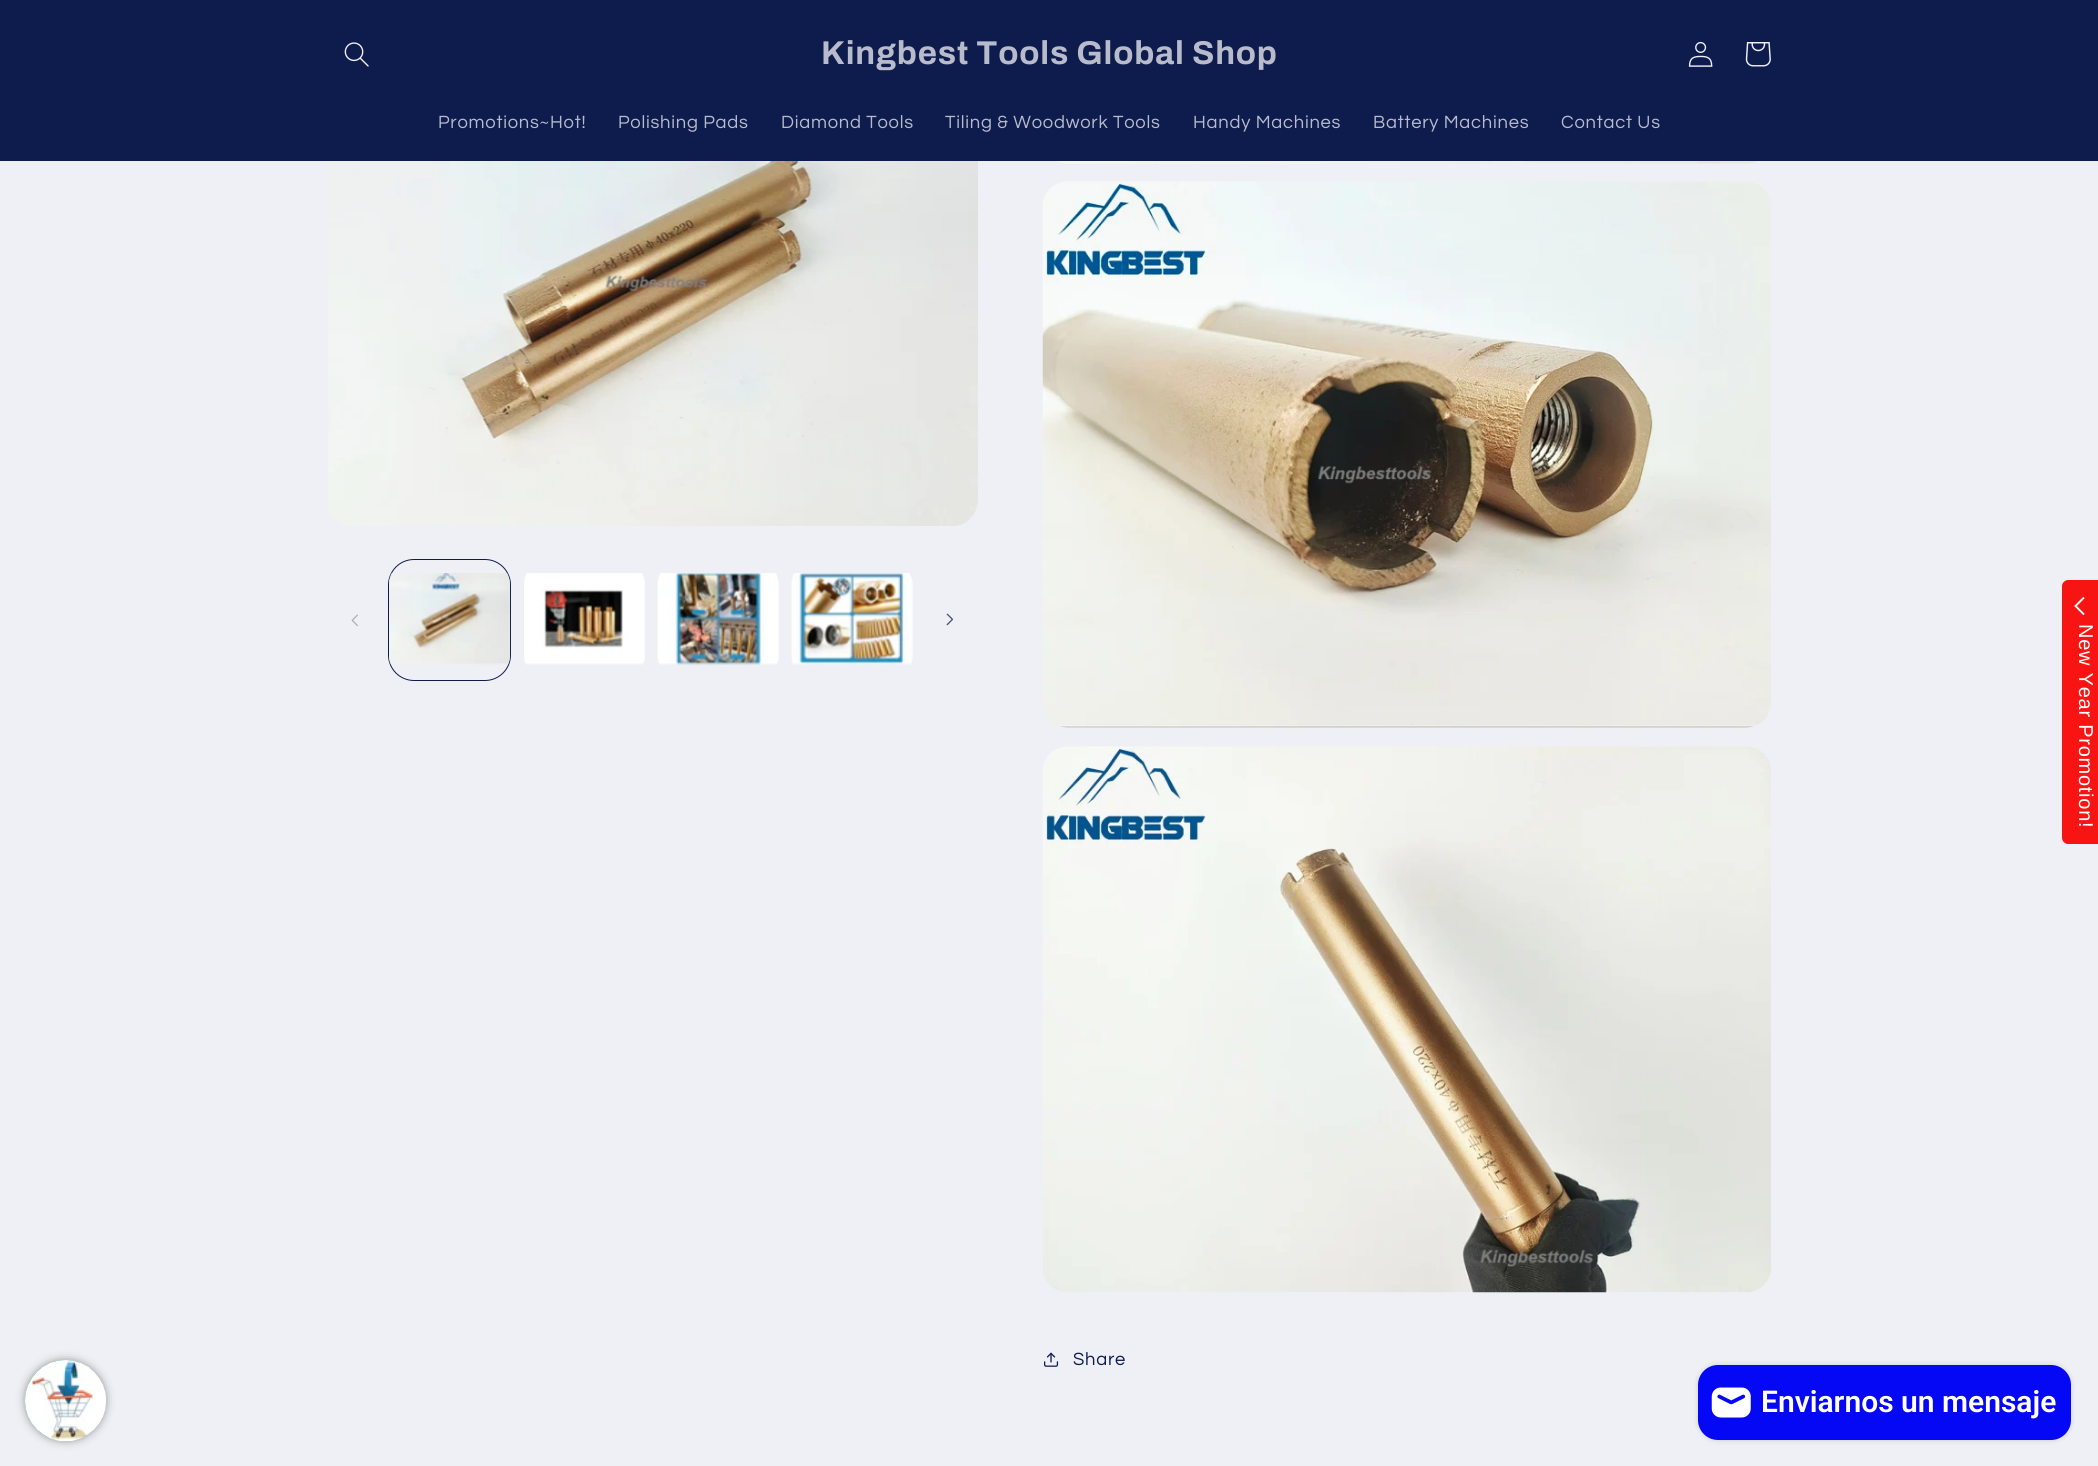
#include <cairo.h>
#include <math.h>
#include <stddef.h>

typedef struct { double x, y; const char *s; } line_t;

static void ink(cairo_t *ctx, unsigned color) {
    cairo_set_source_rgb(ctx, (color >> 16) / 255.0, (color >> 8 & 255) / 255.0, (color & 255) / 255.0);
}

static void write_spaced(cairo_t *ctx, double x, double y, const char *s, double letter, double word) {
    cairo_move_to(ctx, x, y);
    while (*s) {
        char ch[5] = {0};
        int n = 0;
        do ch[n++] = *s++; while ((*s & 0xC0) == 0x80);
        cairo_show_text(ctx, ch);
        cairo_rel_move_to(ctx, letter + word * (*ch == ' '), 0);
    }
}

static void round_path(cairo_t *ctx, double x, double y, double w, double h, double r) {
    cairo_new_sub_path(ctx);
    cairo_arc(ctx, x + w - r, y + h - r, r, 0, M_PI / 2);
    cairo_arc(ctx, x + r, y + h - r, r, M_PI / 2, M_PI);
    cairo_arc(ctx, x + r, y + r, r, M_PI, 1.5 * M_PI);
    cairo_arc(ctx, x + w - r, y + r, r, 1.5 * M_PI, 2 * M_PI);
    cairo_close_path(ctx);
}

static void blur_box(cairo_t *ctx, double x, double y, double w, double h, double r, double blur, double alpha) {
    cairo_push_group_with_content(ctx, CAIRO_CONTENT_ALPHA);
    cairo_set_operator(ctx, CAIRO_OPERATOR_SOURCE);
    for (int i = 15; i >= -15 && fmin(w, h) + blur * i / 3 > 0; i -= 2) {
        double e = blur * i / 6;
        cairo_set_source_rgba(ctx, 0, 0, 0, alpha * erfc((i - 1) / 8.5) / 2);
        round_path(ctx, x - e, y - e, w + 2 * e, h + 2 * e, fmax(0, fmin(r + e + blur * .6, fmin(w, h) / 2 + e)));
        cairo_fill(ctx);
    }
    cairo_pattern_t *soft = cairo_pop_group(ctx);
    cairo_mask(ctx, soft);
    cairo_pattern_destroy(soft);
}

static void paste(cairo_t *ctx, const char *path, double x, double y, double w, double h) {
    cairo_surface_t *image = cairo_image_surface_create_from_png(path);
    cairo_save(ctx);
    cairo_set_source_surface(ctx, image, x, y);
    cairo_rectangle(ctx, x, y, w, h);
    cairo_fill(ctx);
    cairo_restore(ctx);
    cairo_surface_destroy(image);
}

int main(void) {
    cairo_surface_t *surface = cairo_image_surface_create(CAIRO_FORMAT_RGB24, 2098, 1466);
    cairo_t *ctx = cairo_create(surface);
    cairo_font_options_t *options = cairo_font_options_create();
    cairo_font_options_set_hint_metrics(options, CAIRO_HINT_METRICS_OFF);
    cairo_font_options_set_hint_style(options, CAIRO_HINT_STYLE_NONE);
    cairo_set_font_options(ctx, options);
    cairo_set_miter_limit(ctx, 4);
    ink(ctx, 0xEFF0F5);
    cairo_paint(ctx);
    ink(ctx, 0x0E1B4D);
    cairo_rectangle(ctx, 0, 0, 2098, 161);
    cairo_fill(ctx);
    paste(ctx, "media/1.png", 344, 42, 25, 25);
    cairo_select_font_face(ctx, "Archivo", CAIRO_FONT_SLANT_NORMAL, CAIRO_FONT_WEIGHT_BOLD);
    cairo_set_font_size(ctx, 33);
    ink(ctx, 0xB7BBCB);
    write_spaced(ctx, 821, 64, "Kingbest Tools Global Shop", 0.8, 0);
    paste(ctx, "media/2.png", 1688, 41, 25, 26);
    paste(ctx, "media/3.png", 1745, 42, 26, 25);
    cairo_select_font_face(ctx, "Questrial", CAIRO_FONT_SLANT_NORMAL, CAIRO_FONT_WEIGHT_NORMAL);
    cairo_set_font_size(ctx, 18.4);
    {
        static const line_t items[] = {
            {438, 128, "Promotions~Hot!"},
            {618, 128, "Polishing Pads"},
            {781, 128, "Diamond Tools"},
            {945, 128, "Tiling & Woodwork Tools"},
            {1193, 128, "Handy Machines"},
            {1373, 128, "Battery Machines"},
            {1561, 128, "Contact Us"},
        };
        for (size_t i = 0; i < sizeof items / sizeof *items; i++) {
            write_spaced(ctx, items[i].x, items[i].y, items[i].s, 0.75, 0);
        }
    }
    ink(ctx, 0xF91414);
    cairo_new_path(ctx);
    cairo_move_to(ctx, 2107, 586);
    cairo_line_to(ctx, 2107, 838);
    cairo_curve_to(ctx, 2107, 841, 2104, 844, 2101, 844);
    cairo_line_to(ctx, 2068, 844);
    cairo_curve_to(ctx, 2065, 844, 2062, 841, 2062, 838);
    cairo_line_to(ctx, 2062, 586);
    cairo_curve_to(ctx, 2062, 583, 2065, 580, 2068, 580);
    cairo_line_to(ctx, 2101, 580);
    cairo_curve_to(ctx, 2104, 580, 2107, 583, 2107, 586);
    cairo_close_path(ctx);
    cairo_fill(ctx);
    cairo_new_path(ctx);
    cairo_move_to(ctx, 2084, 614.5);
    cairo_line_to(ctx, 2075.5, 606);
    cairo_line_to(ctx, 2084, 597.5);
    ink(ctx, 0xFFFFFF);
    cairo_set_line_width(ctx, 1.9);
    cairo_stroke(ctx);
    cairo_select_font_face(ctx, "Liberation Sans", CAIRO_FONT_SLANT_NORMAL, CAIRO_FONT_WEIGHT_NORMAL);
    cairo_set_font_size(ctx, 20);
    cairo_save(ctx);
    cairo_translate(ctx, 2079, 624);
    cairo_rotate(ctx, 90 * M_PI / 180);
    write_spaced(ctx, 0, 0, "New Year Promotion!", 0.75, 0);
    cairo_restore(ctx);
    ink(ctx, 0x000000);
    blur_box(ctx, 30, 1365, 71, 71, 35.5, 6, 1);
    ink(ctx, 0x55C19F);
    cairo_arc(ctx, 65.5, 1400.5, 40.5, 0, 2 * M_PI);
    cairo_fill(ctx);
    paste(ctx, "media/4.png", 25, 1360, 81, 81);
    paste(ctx, "media/5.png", 328, 161, 650, 365);
    paste(ctx, "media/6.png", 351, 614, 7, 12);
    round_path(ctx, 388.5, 559.5, 122, 121, 25.5);
    ink(ctx, 0x0E1B4D);
    cairo_set_line_width(ctx, 1);
    cairo_stroke(ctx);
    paste(ctx, "media/7.png", 389, 573, 122, 92);
    paste(ctx, "media/8.png", 524, 573, 121, 92);
    paste(ctx, "media/9.png", 657, 573, 122, 92);
    paste(ctx, "media/10.png", 791, 573, 122, 92);
    paste(ctx, "media/11.png", 946, 613, 7, 13);
    paste(ctx, "media/12.png", 1056, 161, 702, 3);
    paste(ctx, "media/13.png", 1042, 181, 729, 547);
    paste(ctx, "media/14.png", 1042, 746, 729, 547);
    paste(ctx, "media/15.png", 1044, 1352, 15, 15);
    cairo_select_font_face(ctx, "Questrial", CAIRO_FONT_SLANT_NORMAL, CAIRO_FONT_WEIGHT_NORMAL);
    cairo_set_font_size(ctx, 18.4);
    write_spaced(ctx, 1073, 1365, "Share", 0.75, 0);
    ink(ctx, 0x000000);
    blur_box(ctx, 1698, 1365, 373, 75, 20, 3, 0.15);
    ink(ctx, 0x0508F5);
    round_path(ctx, 1698, 1365, 373, 75, 20);
    cairo_fill(ctx);
    paste(ctx, "media/16.png", 1711, 1387, 40, 31);
    cairo_select_font_face(ctx, "Roboto SemiBold", CAIRO_FONT_SLANT_NORMAL, CAIRO_FONT_WEIGHT_NORMAL);
    cairo_set_font_size(ctx, 30);
    ink(ctx, 0xFFFFFF);
    cairo_move_to(ctx, 1761, 1412);
    cairo_show_text(ctx, "Enviarnos un mensaje");
    cairo_surface_write_to_png(surface, "image.png");
    cairo_font_options_destroy(options);
    cairo_destroy(ctx);
    cairo_surface_destroy(surface);
    return 0;
}
